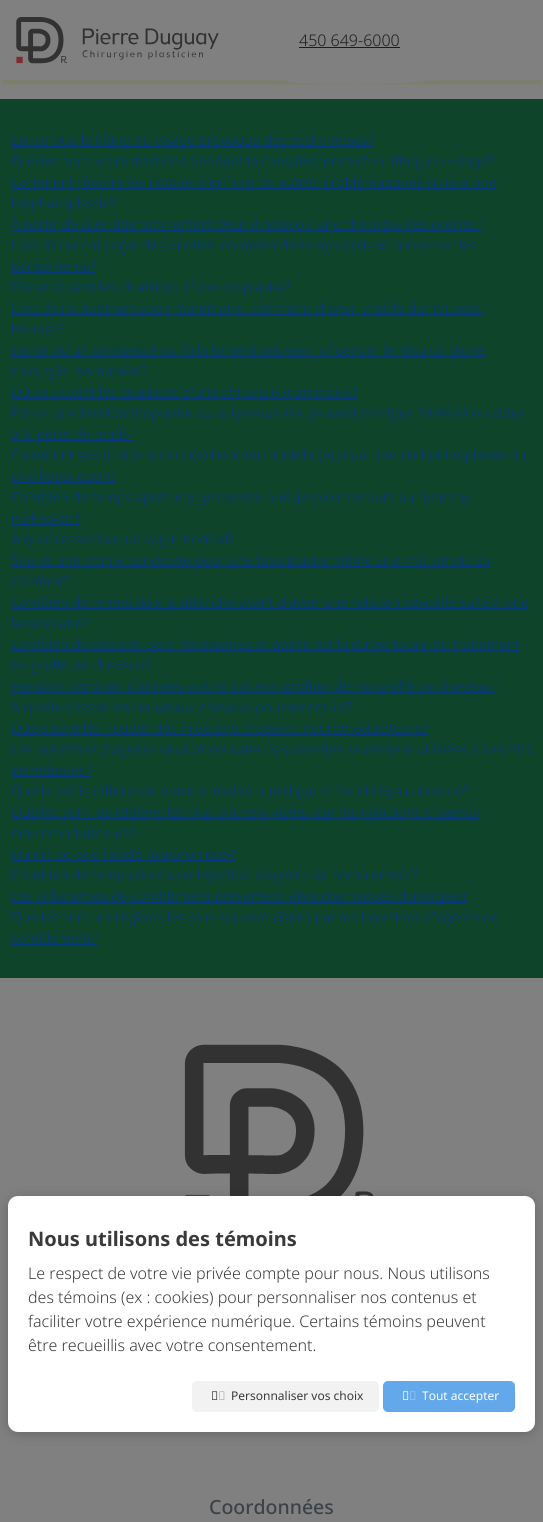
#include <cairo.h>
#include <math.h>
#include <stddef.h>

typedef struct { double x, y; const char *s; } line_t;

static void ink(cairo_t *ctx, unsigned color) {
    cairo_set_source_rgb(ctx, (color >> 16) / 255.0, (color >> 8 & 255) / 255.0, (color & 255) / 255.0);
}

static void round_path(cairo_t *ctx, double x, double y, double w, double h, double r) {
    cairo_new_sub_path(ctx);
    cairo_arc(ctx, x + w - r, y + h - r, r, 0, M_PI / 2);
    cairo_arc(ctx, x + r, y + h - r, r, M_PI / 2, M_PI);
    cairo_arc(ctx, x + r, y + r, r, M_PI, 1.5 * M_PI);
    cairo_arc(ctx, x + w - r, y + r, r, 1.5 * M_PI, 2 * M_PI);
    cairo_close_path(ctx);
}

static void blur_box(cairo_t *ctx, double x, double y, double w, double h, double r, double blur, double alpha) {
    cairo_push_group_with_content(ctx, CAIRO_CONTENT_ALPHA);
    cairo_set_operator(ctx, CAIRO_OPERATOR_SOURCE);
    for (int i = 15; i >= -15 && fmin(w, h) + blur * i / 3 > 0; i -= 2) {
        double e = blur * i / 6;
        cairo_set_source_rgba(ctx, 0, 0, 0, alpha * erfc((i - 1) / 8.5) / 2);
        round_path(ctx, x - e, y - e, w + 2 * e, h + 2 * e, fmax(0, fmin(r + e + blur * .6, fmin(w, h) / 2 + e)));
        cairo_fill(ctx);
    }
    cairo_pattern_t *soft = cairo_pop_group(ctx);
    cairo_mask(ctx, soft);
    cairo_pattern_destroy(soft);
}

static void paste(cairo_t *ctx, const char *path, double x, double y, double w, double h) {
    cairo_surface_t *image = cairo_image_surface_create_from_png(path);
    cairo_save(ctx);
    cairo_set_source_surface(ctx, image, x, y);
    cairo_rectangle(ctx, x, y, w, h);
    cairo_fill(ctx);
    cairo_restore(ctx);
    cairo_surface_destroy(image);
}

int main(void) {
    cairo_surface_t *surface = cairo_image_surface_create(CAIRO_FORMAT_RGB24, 543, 1522);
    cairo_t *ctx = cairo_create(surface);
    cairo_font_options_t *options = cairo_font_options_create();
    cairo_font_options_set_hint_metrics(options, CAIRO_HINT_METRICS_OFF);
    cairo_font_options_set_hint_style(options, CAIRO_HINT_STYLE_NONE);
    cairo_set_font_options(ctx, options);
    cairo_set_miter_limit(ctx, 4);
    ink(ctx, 0x808080);
    cairo_paint(ctx);
    paste(ctx, "media/1.png", 16, 17, 203, 47);
    cairo_select_font_face(ctx, "Noto Sans Light", CAIRO_FONT_SLANT_NORMAL, CAIRO_FONT_WEIGHT_NORMAL);
    cairo_set_font_size(ctx, 16);
    ink(ctx, 0x1D1D1D);
    cairo_move_to(ctx, 299, 46);
    cairo_show_text(ctx, "450 649-6000");
    cairo_rectangle(ctx, 299, 47, 101, 1);
    cairo_fill(ctx);
    paste(ctx, "media/2.png", 2, 80, 540, 5);
    ink(ctx, 0x0D442A);
    cairo_rectangle(ctx, 0, 99, 543, 879);
    cairo_fill(ctx);
    ink(ctx, 0x07377F);
    cairo_rectangle(ctx, 11, 146, 362, 1);
    cairo_fill(ctx);
    cairo_set_font_size(ctx, 14);
    cairo_move_to(ctx, 11, 145);
    cairo_show_text(ctx, "Est-ce que le lifting du visage provoque des ecchymoses?");
    cairo_rectangle(ctx, 11, 167, 482, 1);
    cairo_fill(ctx);
    cairo_move_to(ctx, 11, 166);
    cairo_show_text(ctx, "Quelles sont les restrictions pendant la convalescence d’un lifting du visage?");
    cairo_rectangle(ctx, 11, 188, 485, 1);
    cairo_fill(ctx);
    cairo_move_to(ctx, 11, 187);
    cairo_show_text(ctx, "Comment réduire les risques d’enflure ou autres problématiques suite à une");
    cairo_rectangle(ctx, 11, 209, 104, 1);
    cairo_fill(ctx);
    cairo_move_to(ctx, 11, 208);
    cairo_show_text(ctx, "blépharoplastie?");
    cairo_rectangle(ctx, 11, 230, 471, 1);
    cairo_fill(ctx);
    cairo_move_to(ctx, 11, 229);
    cairo_show_text(ctx, "À partir de quel âge mon enfant peut-il recevoir une chirurgie des oreilles?");
    cairo_rectangle(ctx, 11, 251, 465, 1);
    cairo_fill(ctx);
    cairo_move_to(ctx, 11, 250);
    cairo_show_text(ctx, "Lors d'une chirurgie des oreilles, combien de temps doit-on conserver les");
    cairo_rectangle(ctx, 11, 272, 84, 1);
    cairo_fill(ctx);
    cairo_move_to(ctx, 11, 271);
    cairo_show_text(ctx, "pansements?");
    cairo_rectangle(ctx, 11, 293, 279, 1);
    cairo_fill(ctx);
    cairo_move_to(ctx, 11, 292);
    cairo_show_text(ctx, "Où se situent les cicatrices d'une otoplastie?");
    cairo_rectangle(ctx, 11, 314, 472, 1);
    cairo_fill(ctx);
    cairo_move_to(ctx, 11, 313);
    cairo_show_text(ctx, "Lors d’une augmentation mammaire, comment choisir la taille du nouveau");
    cairo_move_to(ctx, 11, 334);
    cairo_show_text(ctx, "bonnet?");
    cairo_rectangle(ctx, 11, 335, 55, 1);
    cairo_fill(ctx);
    cairo_rectangle(ctx, 11, 356, 474, 1);
    cairo_fill(ctx);
    cairo_move_to(ctx, 11, 355);
    cairo_show_text(ctx, "Est-ce qu'un grossesse ou l'allaitement peuvent influencer le résultat d'une");
    cairo_rectangle(ctx, 11, 377, 135, 1);
    cairo_fill(ctx);
    cairo_move_to(ctx, 11, 376);
    cairo_show_text(ctx, "chirurgie mammaire?");
    cairo_rectangle(ctx, 11, 398, 346, 1);
    cairo_fill(ctx);
    cairo_move_to(ctx, 11, 397);
    cairo_show_text(ctx, "Où se situent les cicatrices d'une chirurgie mammaire?");
    cairo_rectangle(ctx, 11, 419, 513, 1);
    cairo_fill(ctx);
    cairo_move_to(ctx, 11, 418);
    cairo_show_text(ctx, "Est-ce que l’abdominoplastie ou la liposuccion peuvent corriger l’obésité ou aider");
    cairo_rectangle(ctx, 11, 440, 123, 1);
    cairo_fill(ctx);
    cairo_move_to(ctx, 11, 439);
    cairo_show_text(ctx, "à la perte de poids?");
    cairo_rectangle(ctx, 11, 461, 515, 1);
    cairo_fill(ctx);
    cairo_move_to(ctx, 11, 460);
    cairo_show_text(ctx, "Comment savoir si je suis un(e) bon(ne) candidat(e) pour une abdominoplastie ou");
    cairo_rectangle(ctx, 11, 482, 105, 1);
    cairo_fill(ctx);
    cairo_move_to(ctx, 11, 481);
    cairo_show_text(ctx, "une liposuccion?");
    cairo_rectangle(ctx, 11, 503, 459, 1);
    cairo_fill(ctx);
    cairo_move_to(ctx, 11, 502);
    cairo_show_text(ctx, "Combien de temps après ma grossesse puis-je avoir recours au mommy");
    cairo_move_to(ctx, 11, 523);
    cairo_show_text(ctx, "makeover?");
    cairo_rectangle(ctx, 11, 524, 68, 1);
    cairo_fill(ctx);
    cairo_rectangle(ctx, 11, 545, 223, 1);
    cairo_fill(ctx);
    cairo_move_to(ctx, 11, 544);
    cairo_show_text(ctx, "À quoi ressemble un vagin normal?");
    cairo_rectangle(ctx, 11, 566, 479, 1);
    cairo_fill(ctx);
    cairo_move_to(ctx, 11, 565);
    cairo_show_text(ctx, "Suis-je une bonne candidate pour une labiaplastie même si je n'ai jamais eu");
    cairo_move_to(ctx, 11, 586);
    cairo_show_text(ctx, "d'enfant?");
    cairo_rectangle(ctx, 11, 587, 58, 1);
    cairo_fill(ctx);
    cairo_rectangle(ctx, 11, 608, 517, 1);
    cairo_fill(ctx);
    cairo_move_to(ctx, 11, 607);
    cairo_show_text(ctx, "Combien de temps dois-je attendre avant d'avoir une relation sexuelle suite à une");
    cairo_rectangle(ctx, 11, 629, 77, 1);
    cairo_fill(ctx);
    cairo_move_to(ctx, 11, 628);
    cairo_show_text(ctx, "labiasplatie?");
    cairo_rectangle(ctx, 11, 650, 508, 1);
    cairo_fill(ctx);
    cairo_move_to(ctx, 11, 649);
    cairo_show_text(ctx, "Combien de séances sont nécessaires et quelle est la durée totale du traitement");
    cairo_rectangle(ctx, 11, 671, 139, 1);
    cairo_fill(ctx);
    cairo_move_to(ctx, 11, 670);
    cairo_show_text(ctx, "de greffe de cheveux?");
    cairo_rectangle(ctx, 11, 692, 485, 1);
    cairo_fill(ctx);
    cairo_move_to(ctx, 11, 691);
    cairo_show_text(ctx, "Pendant combien d’années vais-je pouvoir profiter de ma greffe de cheveux?");
    cairo_rectangle(ctx, 11, 713, 340, 1);
    cairo_fill(ctx);
    cairo_move_to(ctx, 11, 712);
    cairo_show_text(ctx, "À quelle vitesse les nouveaux cheveux pousseront-ils?");
    cairo_rectangle(ctx, 11, 734, 416, 1);
    cairo_fill(ctx);
    cairo_move_to(ctx, 11, 733);
    cairo_show_text(ctx, "Quels sont les risques des injections d'agents neuromodulateurs?");
    cairo_rectangle(ctx, 11, 755, 520, 1);
    cairo_fill(ctx);
    cairo_move_to(ctx, 11, 754);
    cairo_show_text(ctx, "Les injections d'agents neuromodulateurs sont-elles seulement utilisées à des fins");
    cairo_rectangle(ctx, 11, 776, 80, 1);
    cairo_fill(ctx);
    cairo_move_to(ctx, 11, 775);
    cairo_show_text(ctx, "esthétiques?");
    cairo_rectangle(ctx, 11, 797, 458, 1);
    cairo_fill(ctx);
    cairo_move_to(ctx, 11, 796);
    cairo_show_text(ctx, "Quelle est la différence entre la toxine butolique et l'acide hyaluronique?");
    cairo_rectangle(ctx, 11, 818, 468, 1);
    cairo_fill(ctx);
    cairo_move_to(ctx, 11, 817);
    cairo_show_text(ctx, "Quelles sont les régions les plus souvent visées par les injections d'agents");
    cairo_move_to(ctx, 11, 838);
    cairo_show_text(ctx, "neuromodulateurs?");
    cairo_rectangle(ctx, 11, 839, 125, 1);
    cairo_fill(ctx);
    cairo_rectangle(ctx, 11, 860, 224, 1);
    cairo_fill(ctx);
    cairo_move_to(ctx, 11, 859);
    cairo_show_text(ctx, "Qu'est-ce que l'acide hyaluronique?");
    cairo_rectangle(ctx, 11, 881, 407, 1);
    cairo_fill(ctx);
    cairo_move_to(ctx, 11, 880);
    cairo_show_text(ctx, "Combien de temps dure une injection d'agents de comblement?");
    cairo_rectangle(ctx, 11, 902, 456, 1);
    cairo_fill(ctx);
    cairo_move_to(ctx, 11, 901);
    cairo_show_text(ctx, "Les substances de comblement présentent-elles des risques d'allergies?");
    cairo_rectangle(ctx, 11, 923, 487, 1);
    cairo_fill(ctx);
    cairo_move_to(ctx, 11, 922);
    cairo_show_text(ctx, "Quelles sont les régions les plus souvent visées par les injections d'agents de");
    cairo_move_to(ctx, 11, 943);
    cairo_show_text(ctx, "comblement?");
    cairo_rectangle(ctx, 11, 944, 86, 1);
    cairo_fill(ctx);
    paste(ctx, "media/7.png", 184, 1044, 190, 152);
    ink(ctx, 0x000000);
    blur_box(ctx, 8, 1198, 527, 236, 10, 6, 0.2);
    ink(ctx, 0xFFFFFF);
    round_path(ctx, 8, 1196, 527, 236, 10);
    cairo_fill(ctx);
    cairo_select_font_face(ctx, "Noto Sans", CAIRO_FONT_SLANT_NORMAL, CAIRO_FONT_WEIGHT_BOLD);
    cairo_set_font_size(ctx, 20);
    ink(ctx, 0x3A3A3A);
    cairo_move_to(ctx, 28, 1246);
    cairo_show_text(ctx, "Nous utilisons des témoins");
    cairo_select_font_face(ctx, "Noto Sans Light", CAIRO_FONT_SLANT_NORMAL, CAIRO_FONT_WEIGHT_NORMAL);
    cairo_set_font_size(ctx, 16);
    {
        static const line_t items[] = {
            {28, 1279, "Le respect de votre vie privée compte pour nous. Nous utilisons"},
            {28, 1303, "des témoins (ex : cookies) pour personnaliser nos contenus et"},
            {28, 1327, "faciliter votre expérience numérique. Certains témoins peuvent"},
            {28, 1351, "être recueillis avec votre consentement."},
        };
        for (size_t i = 0; i < sizeof items / sizeof *items; i++) {
            cairo_move_to(ctx, items[i].x, items[i].y);
            cairo_show_text(ctx, items[i].s);
        }
    }
    ink(ctx, 0xF2F2F2);
    round_path(ctx, 192.5, 1381.5, 186, 30, 4.5);
    cairo_fill_preserve(ctx);
    cairo_set_line_width(ctx, 1);
    cairo_stroke(ctx);
    paste(ctx, "media/3.png", 212, 1391, 6, 9);
    paste(ctx, "media/4.png", 212, 1391, 13, 9);
    cairo_select_font_face(ctx, "Noto Sans", CAIRO_FONT_SLANT_NORMAL, CAIRO_FONT_WEIGHT_NORMAL);
    cairo_set_font_size(ctx, 12);
    ink(ctx, 0x3A3A3A);
    cairo_move_to(ctx, 231, 1400);
    cairo_show_text(ctx, "Personnaliser vos choix");
    ink(ctx, 0x62A8EA);
    round_path(ctx, 383.5, 1381.5, 131, 30, 4.5);
    cairo_fill_preserve(ctx);
    cairo_stroke(ctx);
    paste(ctx, "media/5.png", 403, 1391, 6, 9);
    paste(ctx, "media/6.png", 403, 1391, 13, 9);
    ink(ctx, 0xFFFFFF);
    cairo_move_to(ctx, 422, 1400);
    cairo_show_text(ctx, "Tout accepter");
    cairo_select_font_face(ctx, "Noto Sans Medium", CAIRO_FONT_SLANT_NORMAL, CAIRO_FONT_WEIGHT_NORMAL);
    cairo_set_font_size(ctx, 19.5);
    ink(ctx, 0x3B4248);
    cairo_move_to(ctx, 209, 1514);
    cairo_show_text(ctx, "Coordonnées");
    cairo_surface_write_to_png(surface, "image.png");
    cairo_font_options_destroy(options);
    cairo_destroy(ctx);
    cairo_surface_destroy(surface);
    return 0;
}
